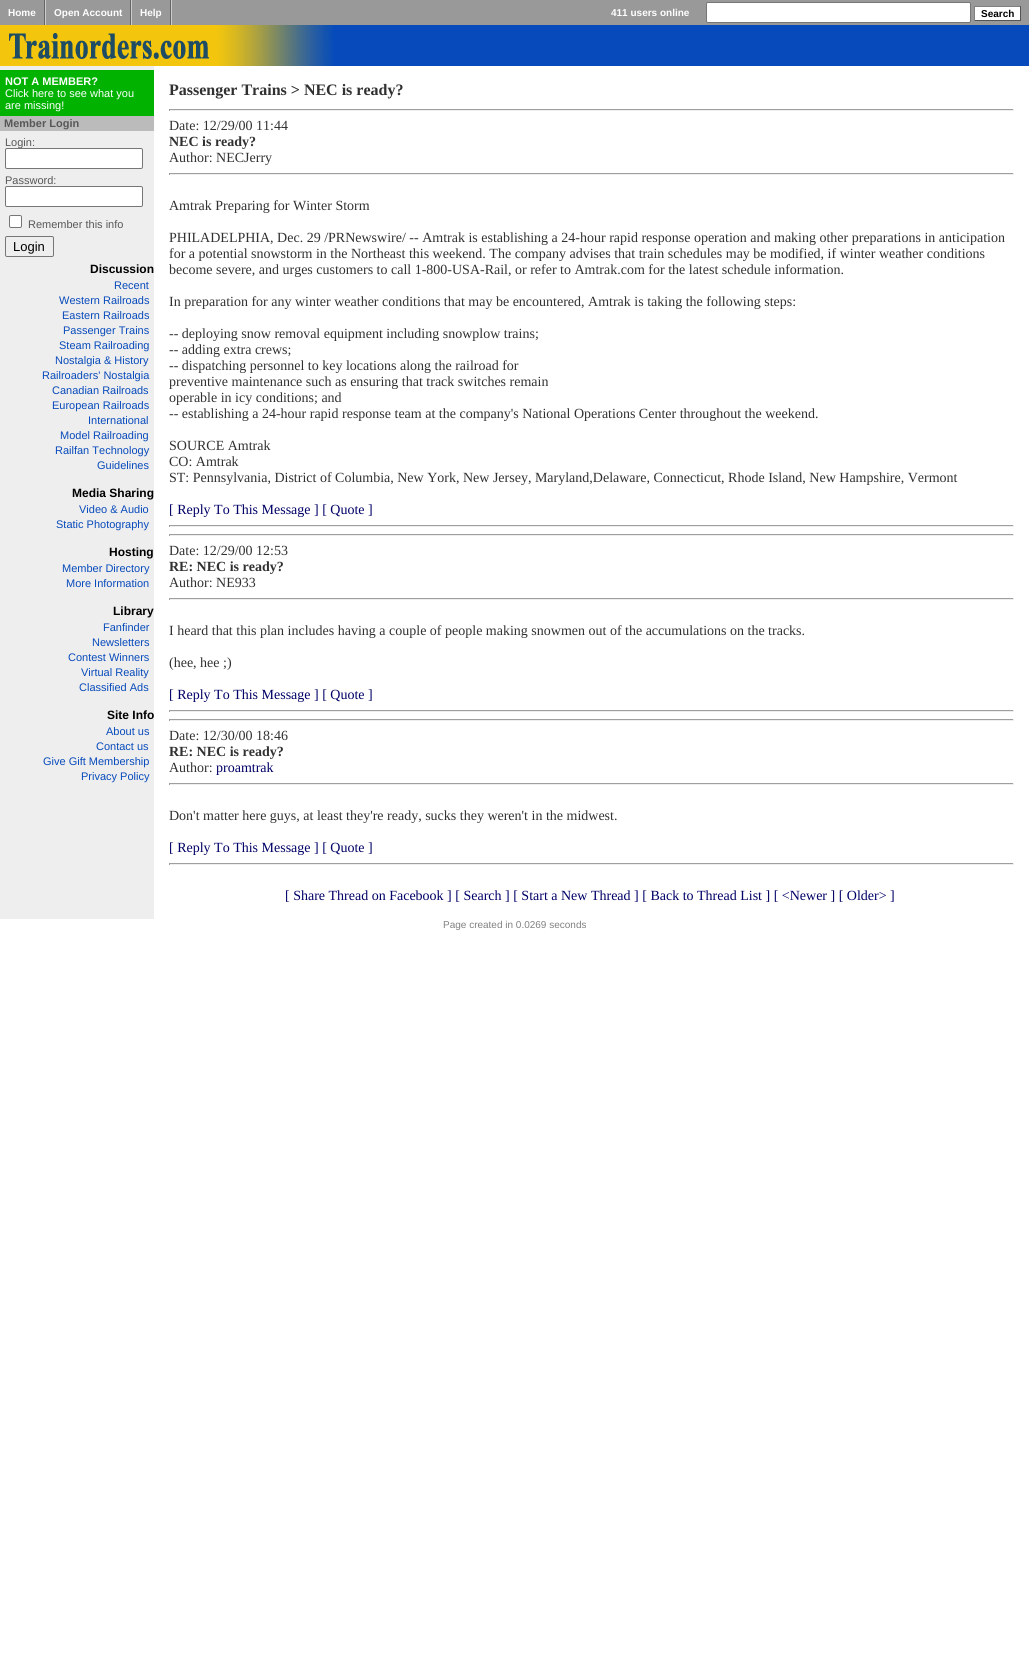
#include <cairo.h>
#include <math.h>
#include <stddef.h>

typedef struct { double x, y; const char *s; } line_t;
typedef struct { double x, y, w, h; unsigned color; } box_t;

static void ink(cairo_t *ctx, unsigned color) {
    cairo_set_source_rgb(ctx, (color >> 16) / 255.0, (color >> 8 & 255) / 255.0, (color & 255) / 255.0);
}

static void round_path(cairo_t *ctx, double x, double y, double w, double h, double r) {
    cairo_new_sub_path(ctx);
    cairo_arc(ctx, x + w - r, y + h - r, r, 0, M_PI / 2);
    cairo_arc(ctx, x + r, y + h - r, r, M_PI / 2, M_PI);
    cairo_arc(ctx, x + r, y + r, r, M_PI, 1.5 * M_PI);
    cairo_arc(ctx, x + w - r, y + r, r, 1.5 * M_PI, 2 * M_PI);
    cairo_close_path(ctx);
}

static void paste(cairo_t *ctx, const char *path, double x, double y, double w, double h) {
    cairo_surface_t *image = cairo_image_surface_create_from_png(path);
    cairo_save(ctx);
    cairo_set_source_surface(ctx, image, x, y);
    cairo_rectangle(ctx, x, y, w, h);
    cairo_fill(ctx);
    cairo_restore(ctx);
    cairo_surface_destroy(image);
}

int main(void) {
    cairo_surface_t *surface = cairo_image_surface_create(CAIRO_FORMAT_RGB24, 1029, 1655);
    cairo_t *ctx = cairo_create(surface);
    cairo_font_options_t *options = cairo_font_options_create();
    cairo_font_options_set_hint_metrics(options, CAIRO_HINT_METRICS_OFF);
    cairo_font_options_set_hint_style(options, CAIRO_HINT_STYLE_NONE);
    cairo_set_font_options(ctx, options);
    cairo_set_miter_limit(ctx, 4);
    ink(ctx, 0xFFFFFF);
    cairo_paint(ctx);
    ink(ctx, 0x999999);
    cairo_rectangle(ctx, 0, 0, 1029, 25);
    cairo_fill(ctx);
    ink(ctx, 0x676767);
    cairo_rectangle(ctx, 44, 0, 1, 25);
    cairo_fill(ctx);
    cairo_select_font_face(ctx, "Liberation Sans", CAIRO_FONT_SLANT_NORMAL, CAIRO_FONT_WEIGHT_BOLD);
    cairo_set_font_size(ctx, 10);
    ink(ctx, 0xFFFFFF);
    cairo_move_to(ctx, 8, 16);
    cairo_show_text(ctx, "Home");
    ink(ctx, 0x676767);
    cairo_rectangle(ctx, 130, 0, 1, 25);
    cairo_fill(ctx);
    ink(ctx, 0xCBCBCB);
    cairo_rectangle(ctx, 45, 0, 1, 25);
    cairo_fill(ctx);
    ink(ctx, 0xFFFFFF);
    cairo_move_to(ctx, 54, 16);
    cairo_show_text(ctx, "Open Account");
    ink(ctx, 0x676767);
    cairo_rectangle(ctx, 170, 0, 1, 25);
    cairo_fill(ctx);
    ink(ctx, 0xCBCBCB);
    cairo_rectangle(ctx, 131, 0, 1, 25);
    cairo_fill(ctx);
    ink(ctx, 0xFFFFFF);
    cairo_move_to(ctx, 140, 16);
    cairo_show_text(ctx, "Help");
    ink(ctx, 0xCBCBCB);
    cairo_rectangle(ctx, 171, 0, 1, 25);
    cairo_fill(ctx);
    ink(ctx, 0xFFFFFF);
    cairo_move_to(ctx, 611, 16);
    cairo_show_text(ctx, "411 users online");
    round_path(ctx, 706.5, 2.5, 264, 20, 1.5);
    cairo_fill_preserve(ctx);
    ink(ctx, 0x767676);
    cairo_set_line_width(ctx, 1);
    cairo_stroke(ctx);
    {
        static const box_t items[] = {
            {975, 7, 45, 13, 0xFFFFFF},
            {974, 6, 47, 1, 0x808080},
            {1020, 6, 1, 15, 0x555555},
            {974, 20, 47, 1, 0x555555},
            {974, 6, 1, 15, 0x808080},
        };
        for (size_t i = 0; i < sizeof items / sizeof *items; i++) {
            ink(ctx, items[i].color);
            cairo_rectangle(ctx, items[i].x, items[i].y, items[i].w, items[i].h);
            cairo_fill(ctx);
        }
    }
    ink(ctx, 0x000000);
    cairo_move_to(ctx, 981, 17);
    cairo_show_text(ctx, "Search");
    ink(ctx, 0x074ABB);
    cairo_rectangle(ctx, 333, 25, 696, 41);
    cairo_fill(ctx);
    paste(ctx, "media/1.png", 0, 25, 333, 41);
    ink(ctx, 0xEEEEEE);
    cairo_rectangle(ctx, 0, 66, 154, 853);
    cairo_fill(ctx);
    ink(ctx, 0x01B201);
    cairo_rectangle(ctx, 0, 70, 154, 46);
    cairo_fill(ctx);
    cairo_set_font_size(ctx, 11);
    ink(ctx, 0xFFFFFF);
    cairo_move_to(ctx, 5, 85);
    cairo_show_text(ctx, "NOT A MEMBER?");
    cairo_select_font_face(ctx, "Liberation Sans", CAIRO_FONT_SLANT_NORMAL, CAIRO_FONT_WEIGHT_NORMAL);
    cairo_move_to(ctx, 5, 97);
    cairo_show_text(ctx, "Click here to see what you");
    cairo_move_to(ctx, 5, 109);
    cairo_show_text(ctx, "are missing!");
    ink(ctx, 0xBBBBBB);
    cairo_rectangle(ctx, 0, 116, 154, 15);
    cairo_fill(ctx);
    cairo_select_font_face(ctx, "Liberation Sans", CAIRO_FONT_SLANT_NORMAL, CAIRO_FONT_WEIGHT_BOLD);
    ink(ctx, 0x575757);
    cairo_move_to(ctx, 4, 127);
    cairo_show_text(ctx, "Member Login");
    ink(ctx, 0xFFFFFF);
    round_path(ctx, 5.5, 148.5, 137, 20, 1.5);
    cairo_fill_preserve(ctx);
    ink(ctx, 0x767676);
    cairo_stroke(ctx);
    cairo_select_font_face(ctx, "Liberation Sans", CAIRO_FONT_SLANT_NORMAL, CAIRO_FONT_WEIGHT_NORMAL);
    ink(ctx, 0x575757);
    cairo_move_to(ctx, 5, 146);
    cairo_show_text(ctx, "Login:");
    cairo_move_to(ctx, 5, 184);
    cairo_show_text(ctx, "Password:");
    ink(ctx, 0xFFFFFF);
    round_path(ctx, 5.5, 186.5, 137, 20, 1.5);
    cairo_fill_preserve(ctx);
    ink(ctx, 0x767676);
    cairo_stroke(ctx);
    ink(ctx, 0xFFFFFF);
    round_path(ctx, 9.5, 215.5, 12, 12, 1.5);
    cairo_fill_preserve(ctx);
    ink(ctx, 0x767676);
    cairo_stroke(ctx);
    ink(ctx, 0x575757);
    cairo_move_to(ctx, 28, 228);
    cairo_show_text(ctx, "Remember this info");
    round_path(ctx, 5.5, 236.5, 48, 20, 1.5);
    ink(ctx, 0x767676);
    cairo_stroke(ctx);
    cairo_set_font_size(ctx, 13);
    ink(ctx, 0x000000);
    cairo_move_to(ctx, 13, 251);
    cairo_show_text(ctx, "Login");
    cairo_select_font_face(ctx, "Liberation Sans", CAIRO_FONT_SLANT_NORMAL, CAIRO_FONT_WEIGHT_BOLD);
    cairo_set_font_size(ctx, 12);
    cairo_move_to(ctx, 90, 273);
    cairo_show_text(ctx, "Discussion");
    cairo_select_font_face(ctx, "Liberation Sans", CAIRO_FONT_SLANT_NORMAL, CAIRO_FONT_WEIGHT_NORMAL);
    cairo_set_font_size(ctx, 11);
    ink(ctx, 0x074ABB);
    {
        static const line_t items[] = {
            {114, 289, "Recent"},
            {59, 304, "Western Railroads"},
            {62, 319, "Eastern Railroads"},
            {63, 334, "Passenger Trains"},
            {59, 349, "Steam Railroading"},
            {55, 364, "Nostalgia & History"},
            {42, 379, "Railroaders' Nostalgia"},
            {52, 394, "Canadian Railroads"},
            {52, 409, "European Railroads"},
            {88, 424, "International"},
            {60, 439, "Model Railroading"},
            {55, 454, "Railfan Technology"},
            {97, 469, "Guidelines"},
        };
        for (size_t i = 0; i < sizeof items / sizeof *items; i++) {
            cairo_move_to(ctx, items[i].x, items[i].y);
            cairo_show_text(ctx, items[i].s);
        }
    }
    cairo_select_font_face(ctx, "Liberation Sans", CAIRO_FONT_SLANT_NORMAL, CAIRO_FONT_WEIGHT_BOLD);
    cairo_set_font_size(ctx, 12);
    ink(ctx, 0x000000);
    cairo_move_to(ctx, 72, 497);
    cairo_show_text(ctx, "Media Sharing");
    cairo_select_font_face(ctx, "Liberation Sans", CAIRO_FONT_SLANT_NORMAL, CAIRO_FONT_WEIGHT_NORMAL);
    cairo_set_font_size(ctx, 11);
    ink(ctx, 0x074ABB);
    cairo_move_to(ctx, 79, 513);
    cairo_show_text(ctx, "Video & Audio");
    cairo_move_to(ctx, 56, 528);
    cairo_show_text(ctx, "Static Photography");
    cairo_select_font_face(ctx, "Liberation Sans", CAIRO_FONT_SLANT_NORMAL, CAIRO_FONT_WEIGHT_BOLD);
    cairo_set_font_size(ctx, 12);
    ink(ctx, 0x000000);
    cairo_move_to(ctx, 109, 556);
    cairo_show_text(ctx, "Hosting");
    cairo_select_font_face(ctx, "Liberation Sans", CAIRO_FONT_SLANT_NORMAL, CAIRO_FONT_WEIGHT_NORMAL);
    cairo_set_font_size(ctx, 11);
    ink(ctx, 0x074ABB);
    cairo_move_to(ctx, 62, 572);
    cairo_show_text(ctx, "Member Directory");
    cairo_move_to(ctx, 66, 587);
    cairo_show_text(ctx, "More Information");
    cairo_select_font_face(ctx, "Liberation Sans", CAIRO_FONT_SLANT_NORMAL, CAIRO_FONT_WEIGHT_BOLD);
    cairo_set_font_size(ctx, 12);
    ink(ctx, 0x000000);
    cairo_move_to(ctx, 113, 615);
    cairo_show_text(ctx, "Library");
    cairo_select_font_face(ctx, "Liberation Sans", CAIRO_FONT_SLANT_NORMAL, CAIRO_FONT_WEIGHT_NORMAL);
    cairo_set_font_size(ctx, 11);
    ink(ctx, 0x074ABB);
    {
        static const line_t items[] = {
            {103, 631, "Fanfinder"},
            {92, 646, "Newsletters"},
            {68, 661, "Contest Winners"},
            {81, 676, "Virtual Reality"},
            {79, 691, "Classified Ads"},
        };
        for (size_t i = 0; i < sizeof items / sizeof *items; i++) {
            cairo_move_to(ctx, items[i].x, items[i].y);
            cairo_show_text(ctx, items[i].s);
        }
    }
    cairo_select_font_face(ctx, "Liberation Sans", CAIRO_FONT_SLANT_NORMAL, CAIRO_FONT_WEIGHT_BOLD);
    cairo_set_font_size(ctx, 12);
    ink(ctx, 0x000000);
    cairo_move_to(ctx, 107, 719);
    cairo_show_text(ctx, "Site Info");
    cairo_select_font_face(ctx, "Liberation Sans", CAIRO_FONT_SLANT_NORMAL, CAIRO_FONT_WEIGHT_NORMAL);
    cairo_set_font_size(ctx, 11);
    ink(ctx, 0x074ABB);
    {
        static const line_t items[] = {
            {106, 735, "About us"},
            {96, 750, "Contact us"},
            {43, 765, "Give Gift Membership"},
            {81, 780, "Privacy Policy"},
        };
        for (size_t i = 0; i < sizeof items / sizeof *items; i++) {
            cairo_move_to(ctx, items[i].x, items[i].y);
            cairo_show_text(ctx, items[i].s);
        }
    }
    cairo_select_font_face(ctx, "Liberation Serif", CAIRO_FONT_SLANT_NORMAL, CAIRO_FONT_WEIGHT_BOLD);
    cairo_set_font_size(ctx, 16);
    ink(ctx, 0x313131);
    cairo_move_to(ctx, 169, 95);
    cairo_show_text(ctx, "Passenger Trains > NEC is ready?");
    {
        static const box_t items[] = {
            {169, 109, 845, 1, 0x9F9F9F},
            {1013, 109, 1, 2, 0xEEEEEE},
            {169, 110, 845, 1, 0xEEEEEE},
            {169, 109, 1, 2, 0x9F9F9F},
        };
        for (size_t i = 0; i < sizeof items / sizeof *items; i++) {
            ink(ctx, items[i].color);
            cairo_rectangle(ctx, items[i].x, items[i].y, items[i].w, items[i].h);
            cairo_fill(ctx);
        }
    }
    cairo_select_font_face(ctx, "Liberation Serif", CAIRO_FONT_SLANT_NORMAL, CAIRO_FONT_WEIGHT_NORMAL);
    cairo_set_font_size(ctx, 14);
    ink(ctx, 0x313131);
    cairo_move_to(ctx, 169, 130);
    cairo_show_text(ctx, "Date: 12/29/00 11:44");
    cairo_select_font_face(ctx, "Liberation Serif", CAIRO_FONT_SLANT_NORMAL, CAIRO_FONT_WEIGHT_BOLD);
    cairo_move_to(ctx, 169, 146);
    cairo_show_text(ctx, "NEC is ready?");
    cairo_select_font_face(ctx, "Liberation Serif", CAIRO_FONT_SLANT_NORMAL, CAIRO_FONT_WEIGHT_NORMAL);
    cairo_move_to(ctx, 169, 162);
    cairo_show_text(ctx, "Author: NECJerry");
    {
        static const box_t items[] = {
            {169, 173, 845, 1, 0x9F9F9F},
            {1013, 173, 1, 2, 0xEEEEEE},
            {169, 174, 845, 1, 0xEEEEEE},
            {169, 173, 1, 2, 0x9F9F9F},
        };
        for (size_t i = 0; i < sizeof items / sizeof *items; i++) {
            ink(ctx, items[i].color);
            cairo_rectangle(ctx, items[i].x, items[i].y, items[i].w, items[i].h);
            cairo_fill(ctx);
        }
    }
    ink(ctx, 0x313131);
    {
        static const line_t items[] = {
            {169, 210, "Amtrak Preparing for Winter Storm"},
            {169, 242, "PHILADELPHIA, Dec. 29 /PRNewswire/ -- Amtrak is establishing a 24-hour rapid response operation and making other preparations in anticipation"},
            {169, 258, "for a potential snowstorm in the Northeast this weekend. The company advises that train schedules may be modified, if winter weather conditions"},
            {169, 274, "become severe, and urges customers to call 1-800-USA-Rail, or refer to Amtrak.com for the latest schedule information."},
            {169, 306, "In preparation for any winter weather conditions that may be encountered, Amtrak is taking the following steps:"},
            {169, 338, "-- deploying snow removal equipment including snowplow trains;"},
            {169, 354, "-- adding extra crews;"},
            {169, 370, "-- dispatching personnel to key locations along the railroad for"},
            {169, 386, "preventive maintenance such as ensuring that track switches remain"},
            {169, 402, "operable in icy conditions; and"},
            {169, 418, "-- establishing a 24-hour rapid response team at the company's National Operations Center throughout the weekend."},
            {169, 450, "SOURCE Amtrak"},
            {169, 466, "CO: Amtrak"},
            {169, 482, "ST: Pennsylvania, District of Columbia, New York, New Jersey, Maryland,Delaware, Connecticut, Rhode Island, New Hampshire, Vermont"},
        };
        for (size_t i = 0; i < sizeof items / sizeof *items; i++) {
            cairo_move_to(ctx, items[i].x, items[i].y);
            cairo_show_text(ctx, items[i].s);
        }
    }
    ink(ctx, 0x000066);
    cairo_move_to(ctx, 169, 514);
    cairo_show_text(ctx, "[ Reply To This Message ] [ Quote ]");
    {
        static const box_t items[] = {
            {169, 525, 845, 1, 0x9F9F9F},
            {1013, 525, 1, 2, 0xEEEEEE},
            {169, 526, 845, 1, 0xEEEEEE},
            {169, 525, 1, 2, 0x9F9F9F},
            {169, 534, 845, 1, 0x9F9F9F},
            {1013, 534, 1, 2, 0xEEEEEE},
            {169, 535, 845, 1, 0xEEEEEE},
            {169, 534, 1, 2, 0x9F9F9F},
        };
        for (size_t i = 0; i < sizeof items / sizeof *items; i++) {
            ink(ctx, items[i].color);
            cairo_rectangle(ctx, items[i].x, items[i].y, items[i].w, items[i].h);
            cairo_fill(ctx);
        }
    }
    ink(ctx, 0x313131);
    cairo_move_to(ctx, 169, 555);
    cairo_show_text(ctx, "Date: 12/29/00 12:53");
    cairo_select_font_face(ctx, "Liberation Serif", CAIRO_FONT_SLANT_NORMAL, CAIRO_FONT_WEIGHT_BOLD);
    cairo_move_to(ctx, 169, 571);
    cairo_show_text(ctx, "RE: NEC is ready?");
    cairo_select_font_face(ctx, "Liberation Serif", CAIRO_FONT_SLANT_NORMAL, CAIRO_FONT_WEIGHT_NORMAL);
    cairo_move_to(ctx, 169, 587);
    cairo_show_text(ctx, "Author: NE933");
    {
        static const box_t items[] = {
            {169, 598, 845, 1, 0x9F9F9F},
            {1013, 598, 1, 2, 0xEEEEEE},
            {169, 599, 845, 1, 0xEEEEEE},
            {169, 598, 1, 2, 0x9F9F9F},
        };
        for (size_t i = 0; i < sizeof items / sizeof *items; i++) {
            ink(ctx, items[i].color);
            cairo_rectangle(ctx, items[i].x, items[i].y, items[i].w, items[i].h);
            cairo_fill(ctx);
        }
    }
    ink(ctx, 0x313131);
    cairo_move_to(ctx, 169, 635);
    cairo_show_text(ctx, "I heard that this plan includes having a couple of people making snowmen out of the accumulations on the tracks.");
    cairo_move_to(ctx, 169, 667);
    cairo_show_text(ctx, "(hee, hee ;)");
    ink(ctx, 0x000066);
    cairo_move_to(ctx, 169, 699);
    cairo_show_text(ctx, "[ Reply To This Message ] [ Quote ]");
    {
        static const box_t items[] = {
            {169, 710, 845, 1, 0x9F9F9F},
            {1013, 710, 1, 2, 0xEEEEEE},
            {169, 711, 845, 1, 0xEEEEEE},
            {169, 710, 1, 2, 0x9F9F9F},
            {169, 719, 845, 1, 0x9F9F9F},
            {1013, 719, 1, 2, 0xEEEEEE},
            {169, 720, 845, 1, 0xEEEEEE},
            {169, 719, 1, 2, 0x9F9F9F},
        };
        for (size_t i = 0; i < sizeof items / sizeof *items; i++) {
            ink(ctx, items[i].color);
            cairo_rectangle(ctx, items[i].x, items[i].y, items[i].w, items[i].h);
            cairo_fill(ctx);
        }
    }
    ink(ctx, 0x313131);
    cairo_move_to(ctx, 169, 740);
    cairo_show_text(ctx, "Date: 12/30/00 18:46");
    cairo_select_font_face(ctx, "Liberation Serif", CAIRO_FONT_SLANT_NORMAL, CAIRO_FONT_WEIGHT_BOLD);
    cairo_move_to(ctx, 169, 756);
    cairo_show_text(ctx, "RE: NEC is ready?");
    cairo_select_font_face(ctx, "Liberation Serif", CAIRO_FONT_SLANT_NORMAL, CAIRO_FONT_WEIGHT_NORMAL);
    cairo_move_to(ctx, 169, 772);
    cairo_show_text(ctx, "Author:");
    ink(ctx, 0x000066);
    cairo_move_to(ctx, 216, 772);
    cairo_show_text(ctx, "proamtrak");
    {
        static const box_t items[] = {
            {169, 783, 845, 1, 0x9F9F9F},
            {1013, 783, 1, 2, 0xEEEEEE},
            {169, 784, 845, 1, 0xEEEEEE},
            {169, 783, 1, 2, 0x9F9F9F},
        };
        for (size_t i = 0; i < sizeof items / sizeof *items; i++) {
            ink(ctx, items[i].color);
            cairo_rectangle(ctx, items[i].x, items[i].y, items[i].w, items[i].h);
            cairo_fill(ctx);
        }
    }
    ink(ctx, 0x313131);
    cairo_move_to(ctx, 169, 820);
    cairo_show_text(ctx, "Don't matter here guys, at least they're ready, sucks they weren't in the midwest.");
    ink(ctx, 0x000066);
    cairo_move_to(ctx, 169, 852);
    cairo_show_text(ctx, "[ Reply To This Message ] [ Quote ]");
    {
        static const box_t items[] = {
            {169, 863, 845, 1, 0x9F9F9F},
            {1013, 863, 1, 2, 0xEEEEEE},
            {169, 864, 845, 1, 0xEEEEEE},
            {169, 863, 1, 2, 0x9F9F9F},
        };
        for (size_t i = 0; i < sizeof items / sizeof *items; i++) {
            ink(ctx, items[i].color);
            cairo_rectangle(ctx, items[i].x, items[i].y, items[i].w, items[i].h);
            cairo_fill(ctx);
        }
    }
    ink(ctx, 0x000066);
    cairo_move_to(ctx, 285, 900);
    cairo_show_text(ctx, "[ Share Thread on Facebook ] [ Search ] [ Start a New Thread ] [ Back to Thread List ] [ <Newer ] [ Older> ]");
    cairo_select_font_face(ctx, "Liberation Sans", CAIRO_FONT_SLANT_NORMAL, CAIRO_FONT_WEIGHT_NORMAL);
    cairo_set_font_size(ctx, 10);
    ink(ctx, 0x808080);
    cairo_move_to(ctx, 443, 928);
    cairo_show_text(ctx, "Page created in 0.0269 seconds");
    cairo_surface_write_to_png(surface, "image.png");
    cairo_font_options_destroy(options);
    cairo_destroy(ctx);
    cairo_surface_destroy(surface);
    return 0;
}
